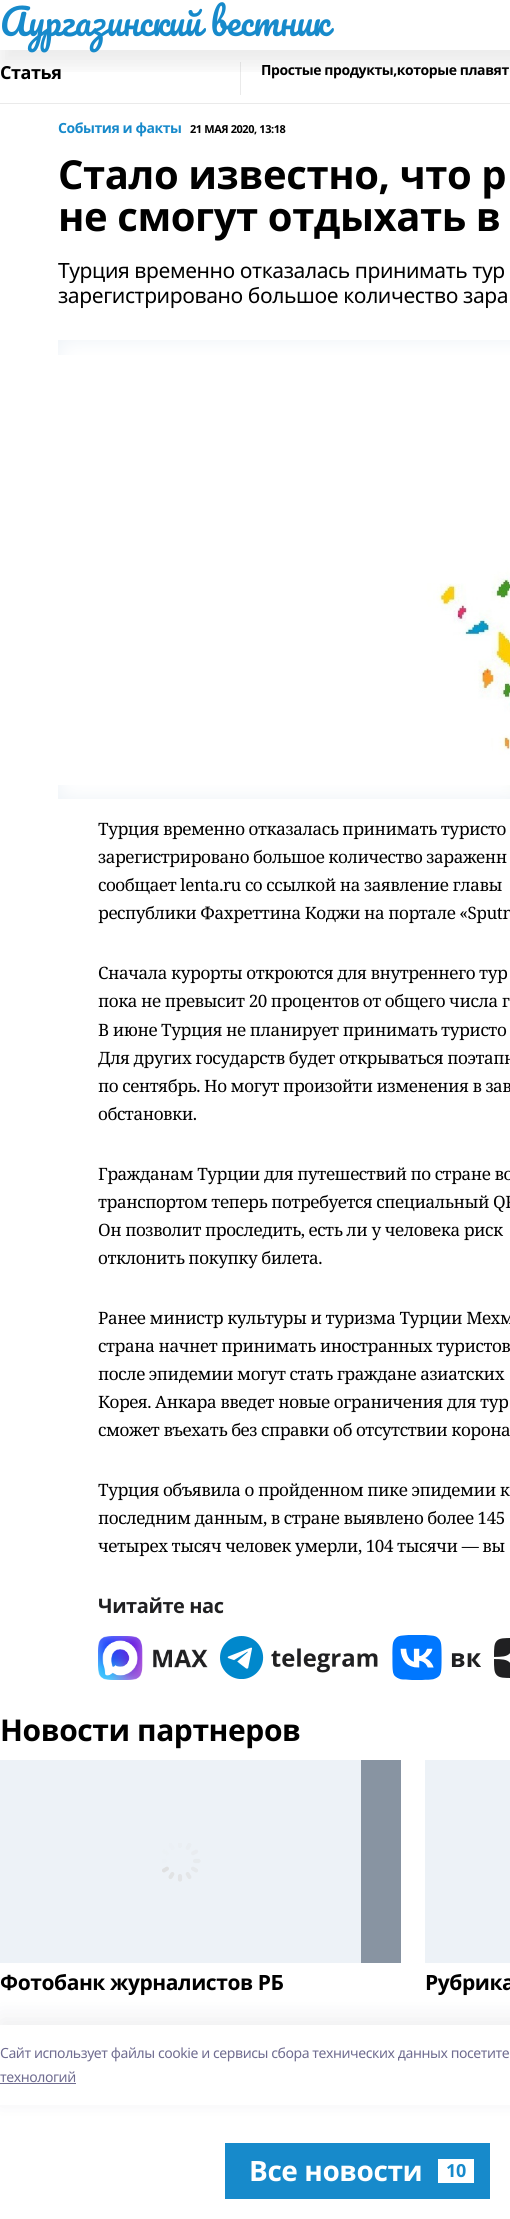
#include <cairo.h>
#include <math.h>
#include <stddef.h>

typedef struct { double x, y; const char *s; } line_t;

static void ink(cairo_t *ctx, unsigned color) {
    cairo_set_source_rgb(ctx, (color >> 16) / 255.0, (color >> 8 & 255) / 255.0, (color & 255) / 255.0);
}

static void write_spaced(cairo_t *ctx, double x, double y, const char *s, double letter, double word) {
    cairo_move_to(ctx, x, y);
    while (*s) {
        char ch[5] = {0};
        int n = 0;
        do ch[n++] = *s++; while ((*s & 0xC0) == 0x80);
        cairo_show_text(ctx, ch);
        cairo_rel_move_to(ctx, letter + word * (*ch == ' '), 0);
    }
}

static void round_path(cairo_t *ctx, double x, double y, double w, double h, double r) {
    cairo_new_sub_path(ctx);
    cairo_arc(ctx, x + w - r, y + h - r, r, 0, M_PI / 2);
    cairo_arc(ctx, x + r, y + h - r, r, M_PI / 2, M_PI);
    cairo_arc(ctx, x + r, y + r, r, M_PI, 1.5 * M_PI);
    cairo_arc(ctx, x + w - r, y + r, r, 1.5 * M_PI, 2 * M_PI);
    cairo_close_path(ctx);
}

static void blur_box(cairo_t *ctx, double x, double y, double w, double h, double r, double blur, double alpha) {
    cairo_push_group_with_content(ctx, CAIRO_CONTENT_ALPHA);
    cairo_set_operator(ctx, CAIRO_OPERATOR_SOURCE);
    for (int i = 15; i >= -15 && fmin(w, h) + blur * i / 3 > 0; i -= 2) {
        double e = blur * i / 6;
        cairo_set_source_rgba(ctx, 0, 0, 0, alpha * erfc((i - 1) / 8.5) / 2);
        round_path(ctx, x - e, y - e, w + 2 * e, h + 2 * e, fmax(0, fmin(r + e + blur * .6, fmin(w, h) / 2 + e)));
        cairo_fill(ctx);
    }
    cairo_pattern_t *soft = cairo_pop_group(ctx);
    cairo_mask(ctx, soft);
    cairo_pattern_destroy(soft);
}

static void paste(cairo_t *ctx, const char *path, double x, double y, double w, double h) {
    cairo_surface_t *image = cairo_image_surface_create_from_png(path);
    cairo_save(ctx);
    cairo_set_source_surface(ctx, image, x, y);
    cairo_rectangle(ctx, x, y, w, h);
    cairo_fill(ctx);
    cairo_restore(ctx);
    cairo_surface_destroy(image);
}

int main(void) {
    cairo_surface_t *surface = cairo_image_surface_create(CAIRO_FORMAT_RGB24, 510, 2219);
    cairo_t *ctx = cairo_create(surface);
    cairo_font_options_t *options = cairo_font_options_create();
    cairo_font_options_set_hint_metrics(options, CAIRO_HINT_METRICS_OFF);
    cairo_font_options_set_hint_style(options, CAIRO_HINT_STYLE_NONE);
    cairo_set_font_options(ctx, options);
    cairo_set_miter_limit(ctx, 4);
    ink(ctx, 0xFFFFFF);
    cairo_paint(ctx);
    ink(ctx, 0xEAEAEA);
    cairo_rectangle(ctx, 240, 62, 1, 33);
    cairo_fill(ctx);
    cairo_save(ctx);
    cairo_rectangle(ctx, 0, 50, 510, 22);
    cairo_clip(ctx);
    ink(ctx, 0x000000);
    blur_box(ctx, 0, 15, 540, 50, 0, 10, 0.08);
    cairo_restore(ctx);
    cairo_select_font_face(ctx, "Pacifico", CAIRO_FONT_SLANT_NORMAL, CAIRO_FONT_WEIGHT_NORMAL);
    cairo_set_font_size(ctx, 36);
    ink(ctx, 0x178ACB);
    write_spaced(ctx, 0, 36, "Аургазинский вестник", -0.42, 0);
    ink(ctx, 0xEAEAEA);
    cairo_rectangle(ctx, 0, 103, 510, 1);
    cairo_fill(ctx);
    cairo_select_font_face(ctx, "Noto Sans", CAIRO_FONT_SLANT_NORMAL, CAIRO_FONT_WEIGHT_BOLD);
    cairo_set_font_size(ctx, 18);
    ink(ctx, 0x000000);
    write_spaced(ctx, 0, 79, "Статья", -0.42, 0);
    cairo_set_font_size(ctx, 14);
    write_spaced(ctx, 261, 75, "Простые продукты,которые плавят", -0.42, 0);
    ink(ctx, 0x178ACB);
    write_spaced(ctx, 58, 133, "События и факты", -0.42, 0);
    cairo_set_font_size(ctx, 11);
    ink(ctx, 0x000000);
    write_spaced(ctx, 190, 133, "21 МАЯ 2020, 13:18", -0.42, 0);
    cairo_set_font_size(ctx, 40);
    write_spaced(ctx, 58, 189, "Стало известно, что р", -0.42, 0);
    write_spaced(ctx, 58, 231, "не смогут отдыхать в", -0.42, 0);
    cairo_select_font_face(ctx, "Noto Sans", CAIRO_FONT_SLANT_NORMAL, CAIRO_FONT_WEIGHT_NORMAL);
    cairo_set_font_size(ctx, 21);
    write_spaced(ctx, 58, 278, "Турция временно отказалась принимать тур", -0.42, 0);
    write_spaced(ctx, 58, 303, "зарегистрировано большое количество зара", -0.42, 0);
    ink(ctx, 0xEDF2F7);
    cairo_rectangle(ctx, 58, 340, 452, 459);
    cairo_fill(ctx);
    paste(ctx, "media/1.png", 58, 340, 452, 459);
    paste(ctx, "media/2.png", 58, 355, 452, 430);
    cairo_select_font_face(ctx, "Noto Serif", CAIRO_FONT_SLANT_NORMAL, CAIRO_FONT_WEIGHT_NORMAL);
    cairo_set_font_size(ctx, 17);
    ink(ctx, 0x000000);
    {
        static const line_t items[] = {
            {98, 835, "Турция временно отказалась принимать туристо"},
            {98, 863, "зарегистрировано большое количество зараженн"},
            {98, 891, "сообщает lenta.ru со ссылкой на заявление главы"},
            {98, 919, "республики Фахреттина Коджи на портале «Sputn"},
            {98, 979, "Сначала курорты откроются для внутреннего тур"},
            {98, 1007, "пока не превысит 20 процентов от общего числа г"},
            {98, 1036, "В июне Турция не планирует принимать туристо"},
            {98, 1064, "Для других государств будет открываться поэтапн"},
            {98, 1092, "по сентябрь. Но могут произойти изменения в зав"},
            {98, 1120, "обстановки."},
            {98, 1180, "Гражданам Турции для путешествий по стране во"},
            {98, 1208, "транспортом теперь потребуется специальный QR"},
            {98, 1236, "Он позволит проследить, есть ли у человека риск"},
            {98, 1264, "отклонить покупку билета."},
            {98, 1324, "Ранее министр культуры и туризма Турции Мехм"},
            {98, 1352, "страна начнет принимать иностранных туристов"},
            {98, 1380, "после эпидемии могут стать граждане азиатских"},
            {98, 1408, "Корея. Анкара введет новые ограничения для тур"},
            {98, 1436, "сможет въехать без справки об отсутствии корона"},
            {98, 1496, "Турция объявила о пройденном пике эпидемии к"},
            {98, 1524, "последним данным, в стране выявлено более 145"},
            {98, 1552, "четырех тысяч человек умерли, 104 тысячи — вы"},
        };
        for (size_t i = 0; i < sizeof items / sizeof *items; i++) {
            write_spaced(ctx, items[i].x, items[i].y, items[i].s, -0.42, 0);
        }
    }
    cairo_select_font_face(ctx, "Noto Sans", CAIRO_FONT_SLANT_NORMAL, CAIRO_FONT_WEIGHT_BOLD);
    cairo_set_font_size(ctx, 20);
    ink(ctx, 0x202022);
    write_spaced(ctx, 98, 1613, "Читайте нас", -0.42, 0);
    paste(ctx, "media/3.png", 98, 1636, 110, 44);
    paste(ctx, "media/4.png", 220, 1636, 158, 43);
    paste(ctx, "media/5.png", 392, 1635, 89, 45);
    paste(ctx, "media/6.png", 494, 1638, 16, 40);
    cairo_set_font_size(ctx, 30);
    ink(ctx, 0x000000);
    write_spaced(ctx, 0, 1741, "Новости партнеров", -0.42, 0);
    ink(ctx, 0x8894A2);
    cairo_rectangle(ctx, 361, 1760, 40, 203);
    cairo_fill(ctx);
    ink(ctx, 0xEDF2F7);
    cairo_rectangle(ctx, 0, 1760, 361, 203);
    cairo_fill(ctx);
    paste(ctx, "media/7.png", 162, 1843, 39, 39);
    cairo_set_font_size(ctx, 21);
    ink(ctx, 0x000000);
    write_spaced(ctx, 0, 1990, "Фотобанк журналистов РБ", -0.42, 0);
    ink(ctx, 0xEDF2F7);
    cairo_rectangle(ctx, 425, 1760, 85, 203);
    cairo_fill(ctx);
    ink(ctx, 0x000000);
    write_spaced(ctx, 425, 1990, "Рубрика", -0.42, 0);
    ink(ctx, 0x178ACB);
    cairo_rectangle(ctx, 225, 2143, 265, 56);
    cairo_fill(ctx);
    cairo_set_font_size(ctx, 28);
    ink(ctx, 0xFFFFFF);
    write_spaced(ctx, 249, 2181, "Все новости", -0.42, 0);
    cairo_rectangle(ctx, 438, 2159, 36, 24);
    cairo_fill(ctx);
    cairo_set_font_size(ctx, 18);
    ink(ctx, 0x178ACB);
    write_spaced(ctx, 446, 2177, "10", -0.42, 0);
    cairo_save(ctx);
    cairo_set_fill_rule(ctx, CAIRO_FILL_RULE_EVEN_ODD);
    cairo_new_path(ctx);
    cairo_move_to(ctx, 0, 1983);
    cairo_line_to(ctx, 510, 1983);
    cairo_line_to(ctx, 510, 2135);
    cairo_line_to(ctx, 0, 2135);
    cairo_close_path(ctx);
    cairo_move_to(ctx, 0, 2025);
    cairo_line_to(ctx, 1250, 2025);
    cairo_line_to(ctx, 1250, 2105);
    cairo_line_to(ctx, 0, 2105);
    cairo_close_path(ctx);
    cairo_clip(ctx);
    ink(ctx, 0x14142B);
    blur_box(ctx, 0, 2019, 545, 80, 0, 11.5, 0.08);
    cairo_restore(ctx);
    cairo_select_font_face(ctx, "Noto Sans", CAIRO_FONT_SLANT_NORMAL, CAIRO_FONT_WEIGHT_NORMAL);
    cairo_set_font_size(ctx, 14);
    ink(ctx, 0x6F6C90);
    write_spaced(ctx, 0, 2058, "Cайт использует файлы cookie и сервисы сбора технических данных посетите", -0.42, 0);
    write_spaced(ctx, 0, 2082, "технологий", -0.42, 0);
    cairo_rectangle(ctx, 0, 2083, 76, 1);
    cairo_fill(ctx);
    cairo_surface_write_to_png(surface, "image.png");
    cairo_font_options_destroy(options);
    cairo_destroy(ctx);
    cairo_surface_destroy(surface);
    return 0;
}
